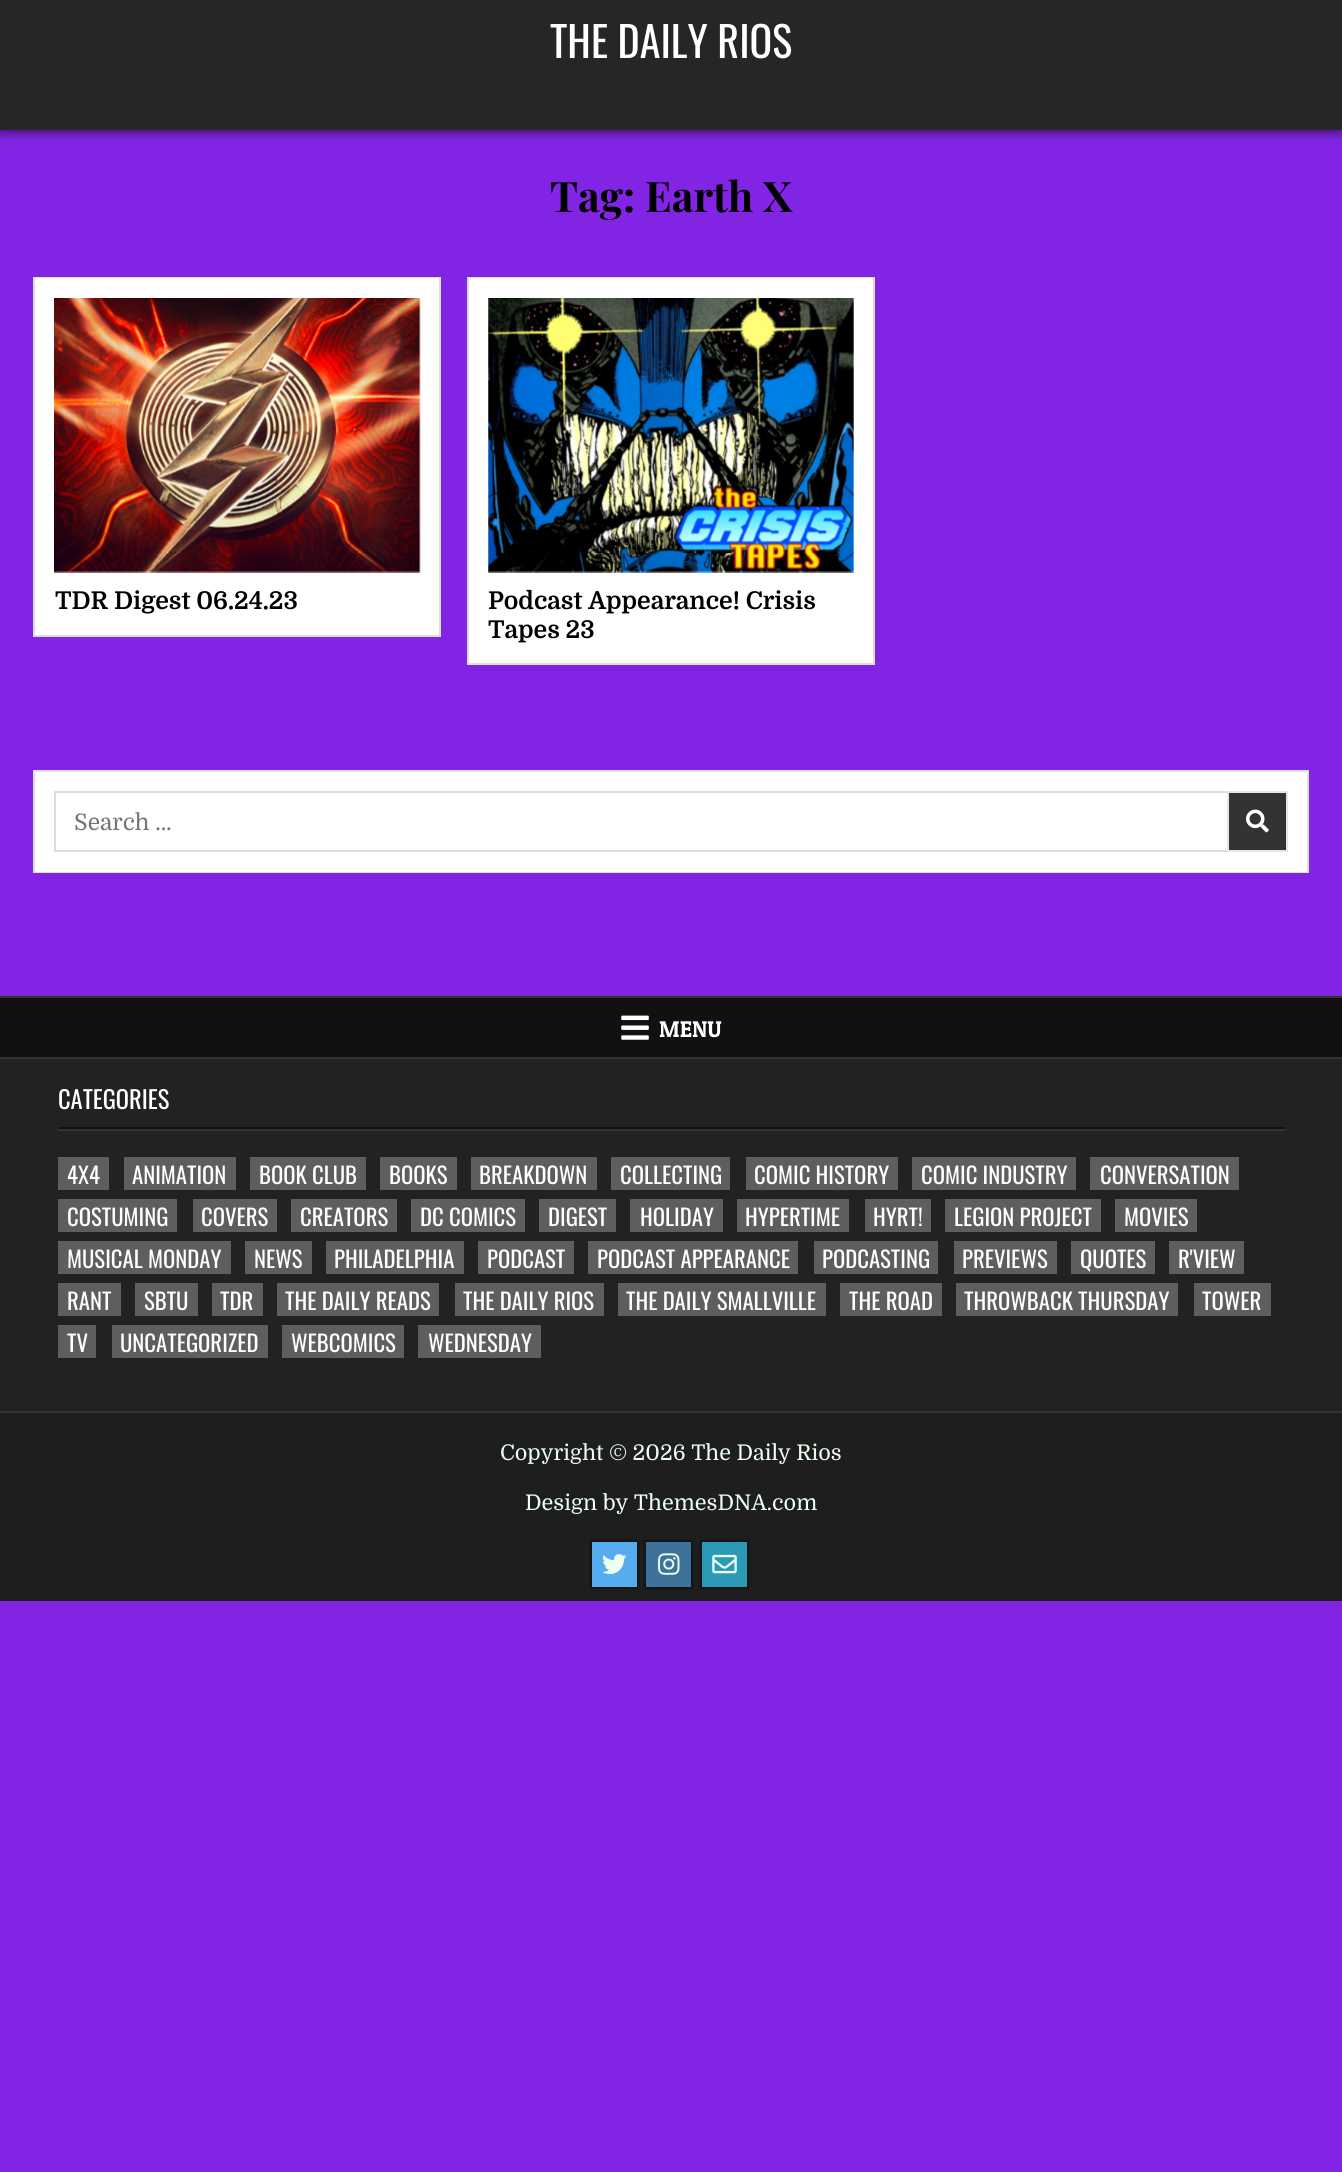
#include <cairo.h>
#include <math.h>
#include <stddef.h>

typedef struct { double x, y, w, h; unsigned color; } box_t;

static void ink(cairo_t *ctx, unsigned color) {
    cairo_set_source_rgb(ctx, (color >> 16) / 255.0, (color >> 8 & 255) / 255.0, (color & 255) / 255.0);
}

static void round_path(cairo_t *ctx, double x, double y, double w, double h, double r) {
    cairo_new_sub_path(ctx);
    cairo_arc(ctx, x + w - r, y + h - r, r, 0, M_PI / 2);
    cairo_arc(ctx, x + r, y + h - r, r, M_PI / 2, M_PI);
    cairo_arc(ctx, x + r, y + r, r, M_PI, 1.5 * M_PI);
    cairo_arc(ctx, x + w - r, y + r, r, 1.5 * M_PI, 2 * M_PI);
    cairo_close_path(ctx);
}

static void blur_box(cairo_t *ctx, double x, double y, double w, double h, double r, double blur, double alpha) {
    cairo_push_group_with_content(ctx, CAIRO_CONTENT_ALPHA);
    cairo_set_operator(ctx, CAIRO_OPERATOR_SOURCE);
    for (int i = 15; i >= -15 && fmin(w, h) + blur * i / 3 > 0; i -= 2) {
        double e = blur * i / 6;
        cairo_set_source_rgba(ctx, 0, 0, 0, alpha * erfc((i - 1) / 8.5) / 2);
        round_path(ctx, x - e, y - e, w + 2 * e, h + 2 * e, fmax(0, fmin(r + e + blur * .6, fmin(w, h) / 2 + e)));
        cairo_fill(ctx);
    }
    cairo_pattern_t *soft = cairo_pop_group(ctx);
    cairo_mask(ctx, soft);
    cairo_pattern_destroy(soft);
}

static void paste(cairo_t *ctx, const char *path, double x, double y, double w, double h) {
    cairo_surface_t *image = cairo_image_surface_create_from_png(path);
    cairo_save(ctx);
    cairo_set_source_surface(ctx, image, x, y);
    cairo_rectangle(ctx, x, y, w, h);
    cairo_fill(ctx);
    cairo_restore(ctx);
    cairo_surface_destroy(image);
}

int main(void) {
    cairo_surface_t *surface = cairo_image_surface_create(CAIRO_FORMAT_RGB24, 1342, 2172);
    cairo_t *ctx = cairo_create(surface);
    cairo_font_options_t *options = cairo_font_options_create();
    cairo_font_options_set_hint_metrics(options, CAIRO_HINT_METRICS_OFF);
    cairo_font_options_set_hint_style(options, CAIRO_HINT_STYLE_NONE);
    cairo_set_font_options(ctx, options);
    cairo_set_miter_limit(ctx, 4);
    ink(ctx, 0x8224E3);
    cairo_paint(ctx);
    ink(ctx, 0x000000);
    blur_box(ctx, 0, 4, 1342, 129, 0, 4.5, 0.5);
    ink(ctx, 0x262626);
    cairo_rectangle(ctx, 0, 0, 1342, 130);
    cairo_fill(ctx);
    cairo_select_font_face(ctx, "Oswald", CAIRO_FONT_SLANT_NORMAL, CAIRO_FONT_WEIGHT_NORMAL);
    cairo_set_font_size(ctx, 42);
    ink(ctx, 0xFFFFFF);
    cairo_move_to(ctx, 550, 58);
    cairo_show_text(ctx, "THE DAILY RIOS");
    cairo_select_font_face(ctx, "Playfair Display", CAIRO_FONT_SLANT_NORMAL, CAIRO_FONT_WEIGHT_BOLD);
    ink(ctx, 0x000000);
    cairo_move_to(ctx, 550, 212);
    cairo_show_text(ctx, "Tag: Earth X");
    ink(ctx, 0xFFFFFF);
    cairo_rectangle(ctx, 37, 280, 400, 353);
    cairo_fill(ctx);
    cairo_rectangle(ctx, 34, 278, 406, 358);
    ink(ctx, 0xDDDDDD);
    cairo_stroke(ctx);
    cairo_rectangle(ctx, 36, 279, 402, 355);
    ink(ctx, 0xFFFFFF);
    cairo_stroke(ctx);
    paste(ctx, "media/1.png", 54, 298, 367, 275);
    cairo_select_font_face(ctx, "Domine", CAIRO_FONT_SLANT_NORMAL, CAIRO_FONT_WEIGHT_BOLD);
    cairo_set_font_size(ctx, 24.5);
    ink(ctx, 0x000000);
    cairo_move_to(ctx, 55, 609);
    cairo_show_text(ctx, "TDR Digest 06.24.23");
    ink(ctx, 0xFFFFFF);
    cairo_rectangle(ctx, 471, 280, 400, 381);
    cairo_fill(ctx);
    cairo_rectangle(ctx, 468, 278, 406, 386);
    ink(ctx, 0xDDDDDD);
    cairo_stroke(ctx);
    cairo_rectangle(ctx, 470, 279, 402, 383);
    ink(ctx, 0xFFFFFF);
    cairo_stroke(ctx);
    paste(ctx, "media/2.png", 488, 298, 366, 275);
    ink(ctx, 0x000000);
    cairo_move_to(ctx, 488, 609);
    cairo_show_text(ctx, "Podcast Appearance! Crisis");
    cairo_move_to(ctx, 488, 638);
    cairo_show_text(ctx, "Tapes 23");
    ink(ctx, 0xFFFFFF);
    cairo_rectangle(ctx, 37, 774, 1268, 96);
    cairo_fill(ctx);
    cairo_rectangle(ctx, 34, 771, 1274, 101);
    ink(ctx, 0xDDDDDD);
    cairo_stroke(ctx);
    cairo_rectangle(ctx, 36, 773, 1270, 98);
    ink(ctx, 0xFFFFFF);
    cairo_stroke(ctx);
    cairo_rectangle(ctx, 55, 792, 1232, 59);
    ink(ctx, 0xDDDDDD);
    cairo_stroke(ctx);
    cairo_select_font_face(ctx, "Domine", CAIRO_FONT_SLANT_NORMAL, CAIRO_FONT_WEIGHT_NORMAL);
    cairo_set_font_size(ctx, 22.75);
    ink(ctx, 0x757575);
    cairo_move_to(ctx, 74, 830);
    cairo_show_text(ctx, "Search …");
    ink(ctx, 0x333333);
    cairo_rectangle(ctx, 1228, 792, 59, 59);
    cairo_fill_preserve(ctx);
    ink(ctx, 0xE6E6E6);
    cairo_stroke(ctx);
    paste(ctx, "media/3.png", 1246, 809, 23, 24);
    {
        static const box_t items[] = {
            {0, 998, 1342, 59, 0x111111},
            {0, 996, 1342, 2, 0x333333},
            {0, 1057, 1342, 2, 0x333333},
        };
        for (size_t i = 0; i < sizeof items / sizeof *items; i++) {
            ink(ctx, items[i].color);
            cairo_rectangle(ctx, items[i].x, items[i].y, items[i].w, items[i].h);
            cairo_fill(ctx);
        }
    }
    paste(ctx, "media/4.png", 621, 1015, 28, 25);
    cairo_select_font_face(ctx, "Patua One", CAIRO_FONT_SLANT_NORMAL, CAIRO_FONT_WEIGHT_NORMAL);
    ink(ctx, 0xFFFFFF);
    cairo_move_to(ctx, 659, 1037);
    cairo_show_text(ctx, "MENU");
    {
        static const box_t items[] = {
            {0, 1059, 1342, 352, 0x222222},
            {58, 1129, 1227, 2, 0x333333},
            {58, 1127, 1227, 2, 0x111111},
        };
        for (size_t i = 0; i < sizeof items / sizeof *items; i++) {
            ink(ctx, items[i].color);
            cairo_rectangle(ctx, items[i].x, items[i].y, items[i].w, items[i].h);
            cairo_fill(ctx);
        }
    }
    cairo_select_font_face(ctx, "Oswald", CAIRO_FONT_SLANT_NORMAL, CAIRO_FONT_WEIGHT_NORMAL);
    cairo_set_font_size(ctx, 24.5);
    ink(ctx, 0xFFFFFF);
    cairo_move_to(ctx, 58, 1109);
    cairo_show_text(ctx, "CATEGORIES");
    ink(ctx, 0x5F5D5D);
    cairo_rectangle(ctx, 58, 1157, 51, 33);
    cairo_fill(ctx);
    cairo_set_font_size(ctx, 22.75);
    ink(ctx, 0xFFFFFF);
    cairo_move_to(ctx, 67, 1184);
    cairo_show_text(ctx, "4X4");
    ink(ctx, 0x5F5D5D);
    cairo_rectangle(ctx, 124, 1157, 112, 33);
    cairo_fill(ctx);
    ink(ctx, 0xFFFFFF);
    cairo_move_to(ctx, 132, 1184);
    cairo_show_text(ctx, "ANIMATION");
    ink(ctx, 0x5F5D5D);
    cairo_rectangle(ctx, 250, 1157, 116, 33);
    cairo_fill(ctx);
    ink(ctx, 0xFFFFFF);
    cairo_move_to(ctx, 259, 1184);
    cairo_show_text(ctx, "BOOK CLUB");
    ink(ctx, 0x5F5D5D);
    cairo_rectangle(ctx, 380, 1157, 77, 33);
    cairo_fill(ctx);
    ink(ctx, 0xFFFFFF);
    cairo_move_to(ctx, 389, 1184);
    cairo_show_text(ctx, "BOOKS");
    ink(ctx, 0x5F5D5D);
    cairo_rectangle(ctx, 471, 1157, 126, 33);
    cairo_fill(ctx);
    ink(ctx, 0xFFFFFF);
    cairo_move_to(ctx, 479, 1184);
    cairo_show_text(ctx, "BREAKDOWN");
    ink(ctx, 0x5F5D5D);
    cairo_rectangle(ctx, 611, 1157, 119, 33);
    cairo_fill(ctx);
    ink(ctx, 0xFFFFFF);
    cairo_move_to(ctx, 620, 1184);
    cairo_show_text(ctx, "COLLECTING");
    ink(ctx, 0x5F5D5D);
    cairo_rectangle(ctx, 746, 1157, 152, 33);
    cairo_fill(ctx);
    ink(ctx, 0xFFFFFF);
    cairo_move_to(ctx, 754, 1184);
    cairo_show_text(ctx, "COMIC HISTORY");
    ink(ctx, 0x5F5D5D);
    cairo_rectangle(ctx, 912, 1157, 164, 33);
    cairo_fill(ctx);
    ink(ctx, 0xFFFFFF);
    cairo_move_to(ctx, 921, 1184);
    cairo_show_text(ctx, "COMIC INDUSTRY");
    ink(ctx, 0x5F5D5D);
    cairo_rectangle(ctx, 1090, 1157, 149, 33);
    cairo_fill(ctx);
    ink(ctx, 0xFFFFFF);
    cairo_move_to(ctx, 1100, 1184);
    cairo_show_text(ctx, "CONVERSATION");
    ink(ctx, 0x5F5D5D);
    cairo_rectangle(ctx, 58, 1199, 119, 33);
    cairo_fill(ctx);
    ink(ctx, 0xFFFFFF);
    cairo_move_to(ctx, 67, 1226);
    cairo_show_text(ctx, "COSTUMING");
    ink(ctx, 0x5F5D5D);
    cairo_rectangle(ctx, 193, 1199, 84, 33);
    cairo_fill(ctx);
    ink(ctx, 0xFFFFFF);
    cairo_move_to(ctx, 201, 1226);
    cairo_show_text(ctx, "COVERS");
    ink(ctx, 0x5F5D5D);
    cairo_rectangle(ctx, 291, 1199, 106, 33);
    cairo_fill(ctx);
    ink(ctx, 0xFFFFFF);
    cairo_move_to(ctx, 300, 1226);
    cairo_show_text(ctx, "CREATORS");
    ink(ctx, 0x5F5D5D);
    cairo_rectangle(ctx, 411, 1199, 114, 33);
    cairo_fill(ctx);
    ink(ctx, 0xFFFFFF);
    cairo_move_to(ctx, 420, 1226);
    cairo_show_text(ctx, "DC COMICS");
    ink(ctx, 0x5F5D5D);
    cairo_rectangle(ctx, 539, 1199, 77, 33);
    cairo_fill(ctx);
    ink(ctx, 0xFFFFFF);
    cairo_move_to(ctx, 548, 1226);
    cairo_show_text(ctx, "DIGEST");
    ink(ctx, 0x5F5D5D);
    cairo_rectangle(ctx, 630, 1199, 93, 33);
    cairo_fill(ctx);
    ink(ctx, 0xFFFFFF);
    cairo_move_to(ctx, 640, 1226);
    cairo_show_text(ctx, "HOLIDAY");
    ink(ctx, 0x5F5D5D);
    cairo_rectangle(ctx, 737, 1199, 112, 33);
    cairo_fill(ctx);
    ink(ctx, 0xFFFFFF);
    cairo_move_to(ctx, 745, 1226);
    cairo_show_text(ctx, "HYPERTIME");
    ink(ctx, 0x5F5D5D);
    cairo_rectangle(ctx, 865, 1199, 66, 33);
    cairo_fill(ctx);
    ink(ctx, 0xFFFFFF);
    cairo_move_to(ctx, 873, 1226);
    cairo_show_text(ctx, "HYRT!");
    ink(ctx, 0x5F5D5D);
    cairo_rectangle(ctx, 945, 1199, 156, 33);
    cairo_fill(ctx);
    ink(ctx, 0xFFFFFF);
    cairo_move_to(ctx, 954, 1226);
    cairo_show_text(ctx, "LEGION PROJECT");
    ink(ctx, 0x5F5D5D);
    cairo_rectangle(ctx, 1115, 1199, 82, 33);
    cairo_fill(ctx);
    ink(ctx, 0xFFFFFF);
    cairo_move_to(ctx, 1124, 1226);
    cairo_show_text(ctx, "MOVIES");
    ink(ctx, 0x5F5D5D);
    cairo_rectangle(ctx, 58, 1241, 173, 33);
    cairo_fill(ctx);
    ink(ctx, 0xFFFFFF);
    cairo_move_to(ctx, 67, 1268);
    cairo_show_text(ctx, "MUSICAL MONDAY");
    ink(ctx, 0x5F5D5D);
    cairo_rectangle(ctx, 245, 1241, 67, 33);
    cairo_fill(ctx);
    ink(ctx, 0xFFFFFF);
    cairo_move_to(ctx, 254, 1268);
    cairo_show_text(ctx, "NEWS");
    ink(ctx, 0x5F5D5D);
    cairo_rectangle(ctx, 326, 1241, 138, 33);
    cairo_fill(ctx);
    ink(ctx, 0xFFFFFF);
    cairo_move_to(ctx, 334, 1268);
    cairo_show_text(ctx, "PHILADELPHIA");
    ink(ctx, 0x5F5D5D);
    cairo_rectangle(ctx, 478, 1241, 96, 33);
    cairo_fill(ctx);
    ink(ctx, 0xFFFFFF);
    cairo_move_to(ctx, 487, 1268);
    cairo_show_text(ctx, "PODCAST");
    ink(ctx, 0x5F5D5D);
    cairo_rectangle(ctx, 588, 1241, 210, 33);
    cairo_fill(ctx);
    ink(ctx, 0xFFFFFF);
    cairo_move_to(ctx, 597, 1268);
    cairo_show_text(ctx, "PODCAST APPEARANCE");
    ink(ctx, 0x5F5D5D);
    cairo_rectangle(ctx, 814, 1241, 124, 33);
    cairo_fill(ctx);
    ink(ctx, 0xFFFFFF);
    cairo_move_to(ctx, 822, 1268);
    cairo_show_text(ctx, "PODCASTING");
    ink(ctx, 0x5F5D5D);
    cairo_rectangle(ctx, 954, 1241, 103, 33);
    cairo_fill(ctx);
    ink(ctx, 0xFFFFFF);
    cairo_move_to(ctx, 962, 1268);
    cairo_show_text(ctx, "PREVIEWS");
    ink(ctx, 0x5F5D5D);
    cairo_rectangle(ctx, 1071, 1241, 84, 33);
    cairo_fill(ctx);
    ink(ctx, 0xFFFFFF);
    cairo_move_to(ctx, 1080, 1268);
    cairo_show_text(ctx, "QUOTES");
    ink(ctx, 0x5F5D5D);
    cairo_rectangle(ctx, 1169, 1241, 75, 33);
    cairo_fill(ctx);
    ink(ctx, 0xFFFFFF);
    cairo_move_to(ctx, 1178, 1268);
    cairo_show_text(ctx, "R'VIEW");
    ink(ctx, 0x5F5D5D);
    cairo_rectangle(ctx, 58, 1283, 63, 33);
    cairo_fill(ctx);
    ink(ctx, 0xFFFFFF);
    cairo_move_to(ctx, 67, 1310);
    cairo_show_text(ctx, "RANT");
    ink(ctx, 0x5F5D5D);
    cairo_rectangle(ctx, 135, 1283, 63, 33);
    cairo_fill(ctx);
    ink(ctx, 0xFFFFFF);
    cairo_move_to(ctx, 144, 1310);
    cairo_show_text(ctx, "SBTU");
    ink(ctx, 0x5F5D5D);
    cairo_rectangle(ctx, 212, 1283, 51, 33);
    cairo_fill(ctx);
    ink(ctx, 0xFFFFFF);
    cairo_move_to(ctx, 220, 1310);
    cairo_show_text(ctx, "TDR");
    ink(ctx, 0x5F5D5D);
    cairo_rectangle(ctx, 277, 1283, 162, 33);
    cairo_fill(ctx);
    ink(ctx, 0xFFFFFF);
    cairo_move_to(ctx, 285, 1310);
    cairo_show_text(ctx, "THE DAILY READS");
    ink(ctx, 0x5F5D5D);
    cairo_rectangle(ctx, 455, 1283, 149, 33);
    cairo_fill(ctx);
    ink(ctx, 0xFFFFFF);
    cairo_move_to(ctx, 463, 1310);
    cairo_show_text(ctx, "THE DAILY RIOS");
    ink(ctx, 0x5F5D5D);
    cairo_rectangle(ctx, 618, 1283, 208, 33);
    cairo_fill(ctx);
    ink(ctx, 0xFFFFFF);
    cairo_move_to(ctx, 626, 1310);
    cairo_show_text(ctx, "THE DAILY SMALLVILLE");
    ink(ctx, 0x5F5D5D);
    cairo_rectangle(ctx, 840, 1283, 102, 33);
    cairo_fill(ctx);
    ink(ctx, 0xFFFFFF);
    cairo_move_to(ctx, 849, 1310);
    cairo_show_text(ctx, "THE ROAD");
    ink(ctx, 0x5F5D5D);
    cairo_rectangle(ctx, 956, 1283, 222, 33);
    cairo_fill(ctx);
    ink(ctx, 0xFFFFFF);
    cairo_move_to(ctx, 964, 1310);
    cairo_show_text(ctx, "THROWBACK THURSDAY");
    ink(ctx, 0x5F5D5D);
    cairo_rectangle(ctx, 1194, 1283, 77, 33);
    cairo_fill(ctx);
    ink(ctx, 0xFFFFFF);
    cairo_move_to(ctx, 1202, 1310);
    cairo_show_text(ctx, "TOWER");
    ink(ctx, 0x5F5D5D);
    cairo_rectangle(ctx, 58, 1325, 38, 33);
    cairo_fill(ctx);
    ink(ctx, 0xFFFFFF);
    cairo_move_to(ctx, 67, 1352);
    cairo_show_text(ctx, "TV");
    ink(ctx, 0x5F5D5D);
    cairo_rectangle(ctx, 112, 1325, 156, 33);
    cairo_fill(ctx);
    ink(ctx, 0xFFFFFF);
    cairo_move_to(ctx, 120, 1352);
    cairo_show_text(ctx, "UNCATEGORIZED");
    ink(ctx, 0x5F5D5D);
    cairo_rectangle(ctx, 282, 1325, 122, 33);
    cairo_fill(ctx);
    ink(ctx, 0xFFFFFF);
    cairo_move_to(ctx, 291, 1352);
    cairo_show_text(ctx, "WEBCOMICS");
    ink(ctx, 0x5F5D5D);
    cairo_rectangle(ctx, 418, 1325, 123, 33);
    cairo_fill(ctx);
    ink(ctx, 0xFFFFFF);
    cairo_move_to(ctx, 428, 1352);
    cairo_show_text(ctx, "WEDNESDAY");
    ink(ctx, 0x1E1E1E);
    cairo_rectangle(ctx, 0, 1413, 1342, 188);
    cairo_fill(ctx);
    ink(ctx, 0x333333);
    cairo_rectangle(ctx, 0, 1411, 1342, 2);
    cairo_fill(ctx);
    cairo_select_font_face(ctx, "Domine", CAIRO_FONT_SLANT_NORMAL, CAIRO_FONT_WEIGHT_NORMAL);
    cairo_set_font_size(ctx, 21.6);
    ink(ctx, 0xECFFF1);
    cairo_move_to(ctx, 500, 1460);
    cairo_show_text(ctx, "Copyright © 2026 The Daily Rios");
    cairo_move_to(ctx, 525, 1510);
    cairo_show_text(ctx, "Design by ThemesDNA.com");
    ink(ctx, 0x000000);
    blur_box(ctx, 592, 1542, 45, 45, 0, 2, 1);
    ink(ctx, 0x55ACEE);
    cairo_rectangle(ctx, 592, 1542, 45, 45);
    cairo_fill(ctx);
    paste(ctx, "media/5.png", 602, 1554, 25, 20);
    ink(ctx, 0x000000);
    blur_box(ctx, 646, 1542, 45, 45, 0, 2, 1);
    ink(ctx, 0x3F729B);
    cairo_rectangle(ctx, 646, 1542, 45, 45);
    cairo_fill(ctx);
    paste(ctx, "media/6.png", 658, 1553, 22, 22);
    ink(ctx, 0x000000);
    blur_box(ctx, 702, 1542, 45, 45, 0, 2, 1);
    ink(ctx, 0x2C9AB7);
    cairo_rectangle(ctx, 702, 1542, 45, 45);
    cairo_fill(ctx);
    paste(ctx, "media/7.png", 712, 1554, 25, 20);
    cairo_surface_write_to_png(surface, "image.png");
    cairo_font_options_destroy(options);
    cairo_destroy(ctx);
    cairo_surface_destroy(surface);
    return 0;
}
